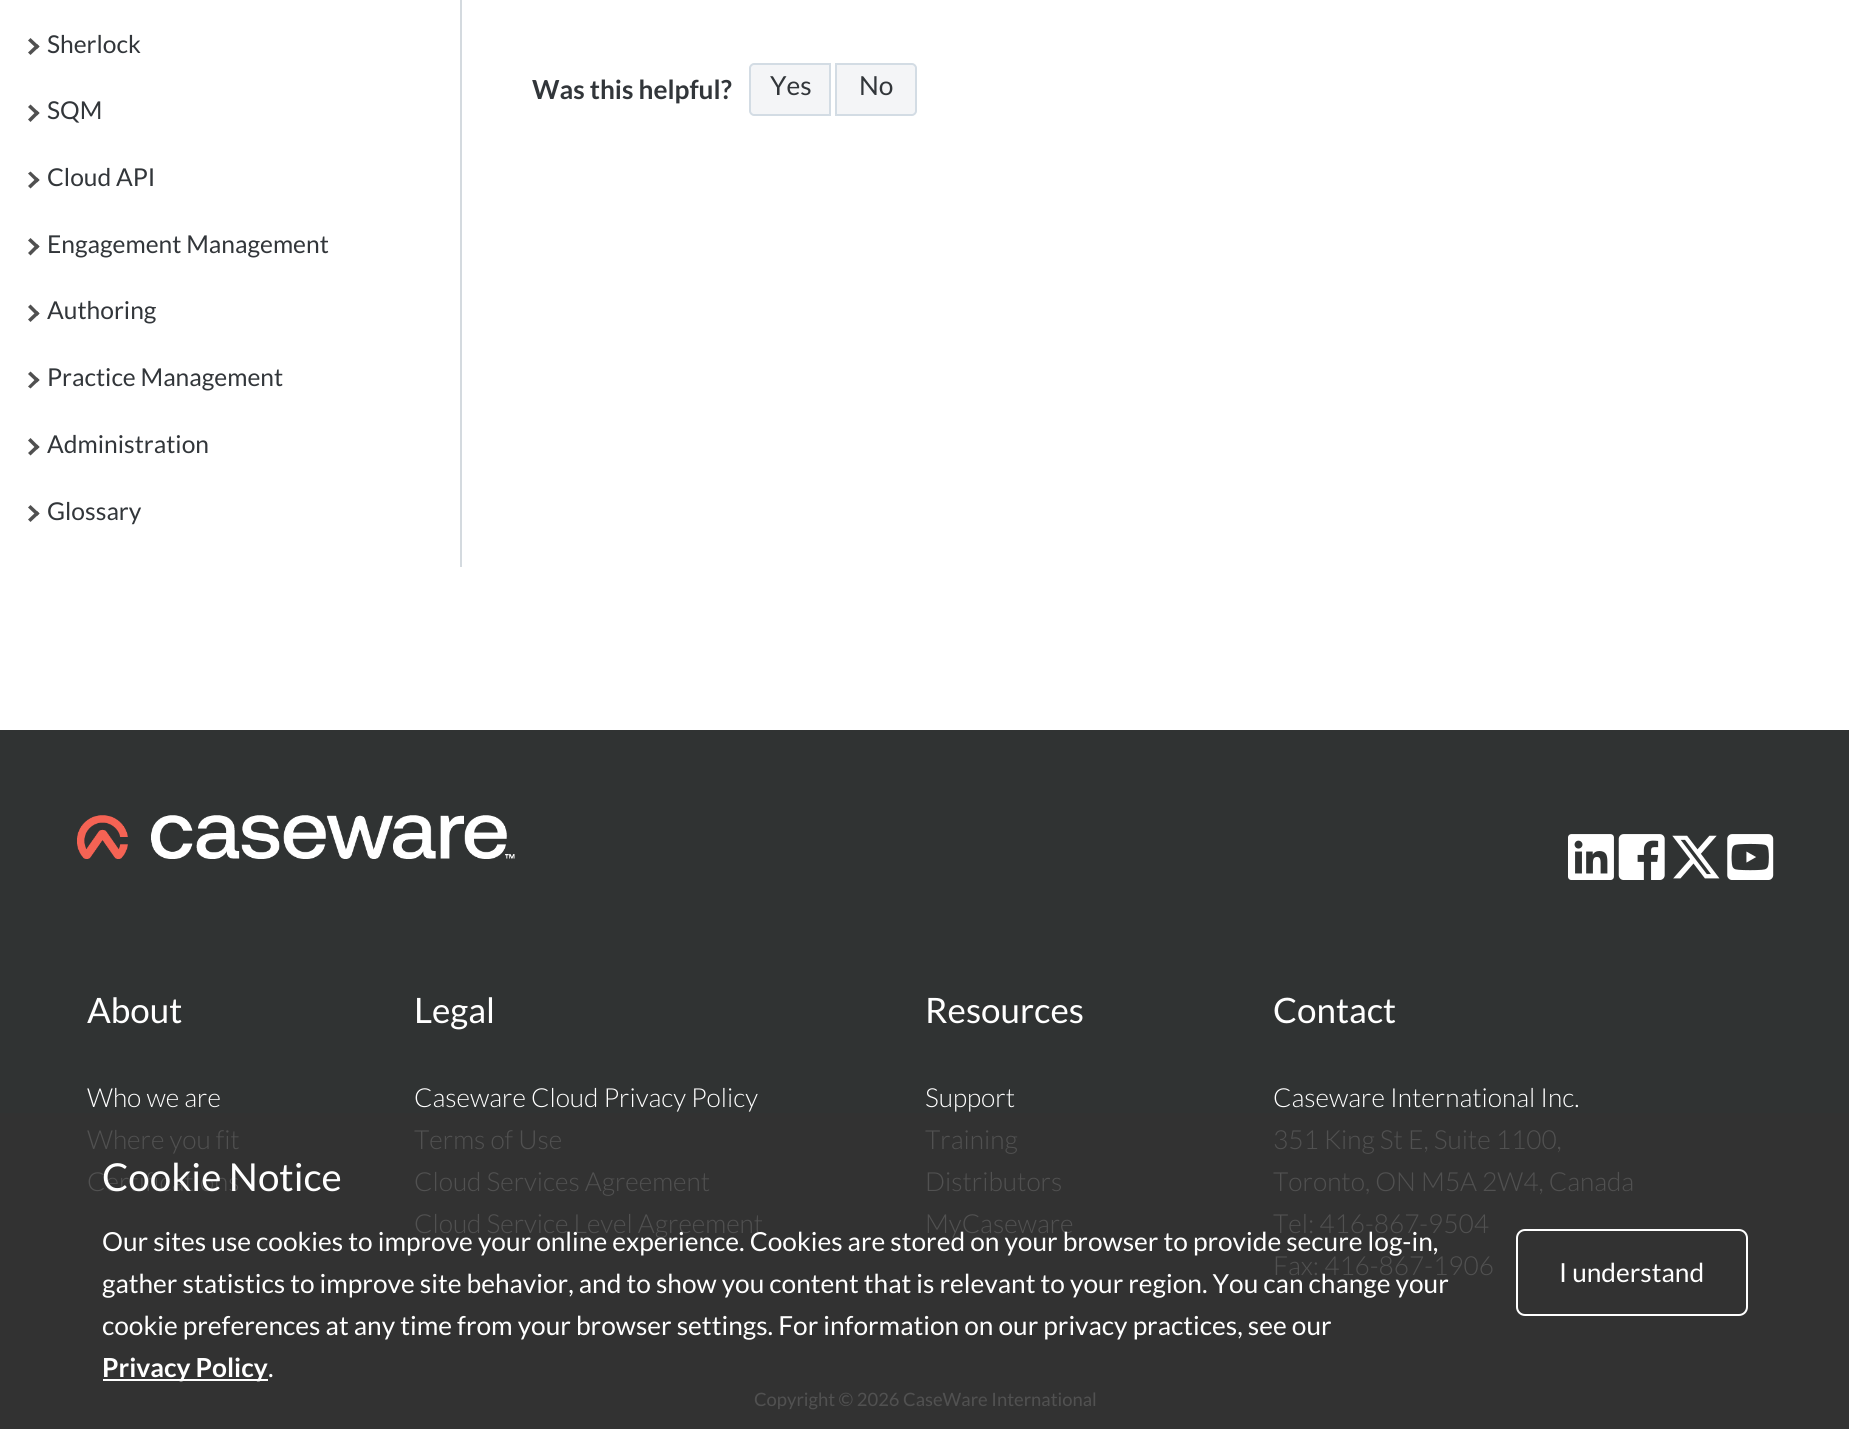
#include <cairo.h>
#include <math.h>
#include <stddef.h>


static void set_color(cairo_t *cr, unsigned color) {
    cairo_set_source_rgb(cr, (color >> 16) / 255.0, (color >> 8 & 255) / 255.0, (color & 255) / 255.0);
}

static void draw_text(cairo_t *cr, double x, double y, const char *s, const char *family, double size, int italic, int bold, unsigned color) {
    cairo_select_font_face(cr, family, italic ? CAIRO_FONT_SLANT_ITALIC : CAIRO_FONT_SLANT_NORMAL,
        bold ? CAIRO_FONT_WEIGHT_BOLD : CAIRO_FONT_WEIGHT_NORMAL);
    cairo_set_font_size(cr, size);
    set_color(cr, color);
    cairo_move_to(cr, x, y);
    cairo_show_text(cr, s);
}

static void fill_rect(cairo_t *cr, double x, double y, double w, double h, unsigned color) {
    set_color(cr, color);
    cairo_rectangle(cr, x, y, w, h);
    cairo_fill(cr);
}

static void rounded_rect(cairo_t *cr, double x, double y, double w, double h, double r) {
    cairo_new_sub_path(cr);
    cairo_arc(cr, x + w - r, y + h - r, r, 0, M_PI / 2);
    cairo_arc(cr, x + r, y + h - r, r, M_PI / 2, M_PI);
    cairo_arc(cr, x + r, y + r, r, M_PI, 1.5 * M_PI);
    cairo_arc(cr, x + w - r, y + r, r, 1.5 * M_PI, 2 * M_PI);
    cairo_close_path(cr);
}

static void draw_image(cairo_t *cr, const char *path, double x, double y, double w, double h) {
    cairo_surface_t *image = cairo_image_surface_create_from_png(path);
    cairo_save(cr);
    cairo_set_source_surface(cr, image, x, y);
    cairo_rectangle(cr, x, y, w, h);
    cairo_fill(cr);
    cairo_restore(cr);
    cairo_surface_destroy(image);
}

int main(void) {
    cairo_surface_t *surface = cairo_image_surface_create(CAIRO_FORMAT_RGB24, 1849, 1429);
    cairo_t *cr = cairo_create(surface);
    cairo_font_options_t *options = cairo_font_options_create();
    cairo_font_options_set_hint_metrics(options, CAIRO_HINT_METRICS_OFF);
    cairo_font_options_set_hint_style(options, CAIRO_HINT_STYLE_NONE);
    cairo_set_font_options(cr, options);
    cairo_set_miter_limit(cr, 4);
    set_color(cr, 0xFFFFFF);
    cairo_paint(cr);
    fill_rect(cr, 460, 0, 2, 567, 0xD4DADF);
    set_color(cr, 0x505050);
    cairo_new_path(cr);
    cairo_move_to(cr, 28, 40.5);
    cairo_line_to(cr, 30.5, 38);
    cairo_line_to(cr, 39.5, 46.5);
    cairo_line_to(cr, 37, 49);
    cairo_close_path(cr);
    cairo_fill(cr);
    cairo_new_path(cr);
    cairo_move_to(cr, 28, 52.5);
    cairo_line_to(cr, 37, 44);
    cairo_line_to(cr, 39.5, 46.5);
    cairo_line_to(cr, 30.5, 55);
    cairo_close_path(cr);
    cairo_fill(cr);
    draw_text(cr, 47, 53, "Sherlock", "Lato", 24.6, 0, 0, 0x32363A);
    set_color(cr, 0x505050);
    cairo_new_path(cr);
    cairo_move_to(cr, 28, 107);
    cairo_line_to(cr, 30.5, 104.5);
    cairo_line_to(cr, 39.5, 113);
    cairo_line_to(cr, 37, 115.5);
    cairo_close_path(cr);
    cairo_fill(cr);
    cairo_new_path(cr);
    cairo_move_to(cr, 28, 119.5);
    cairo_line_to(cr, 37, 110.5);
    cairo_line_to(cr, 39.5, 113);
    cairo_line_to(cr, 30.5, 122);
    cairo_close_path(cr);
    cairo_fill(cr);
    draw_text(cr, 47, 119, "SQM", "Lato", 24.6, 0, 0, 0x32363A);
    set_color(cr, 0x505050);
    cairo_new_path(cr);
    cairo_move_to(cr, 28, 173.5);
    cairo_line_to(cr, 30.5, 171.5);
    cairo_line_to(cr, 39.5, 180);
    cairo_line_to(cr, 37, 182.5);
    cairo_close_path(cr);
    cairo_fill(cr);
    cairo_new_path(cr);
    cairo_move_to(cr, 28, 186);
    cairo_line_to(cr, 37, 177.5);
    cairo_line_to(cr, 39.5, 180);
    cairo_line_to(cr, 30.5, 188.5);
    cairo_close_path(cr);
    cairo_fill(cr);
    draw_text(cr, 47, 186, "Cloud API", "Lato", 24.6, 0, 0, 0x32363A);
    set_color(cr, 0x505050);
    cairo_new_path(cr);
    cairo_move_to(cr, 28, 240.5);
    cairo_line_to(cr, 30.5, 238);
    cairo_line_to(cr, 39.5, 246.5);
    cairo_line_to(cr, 37, 249);
    cairo_close_path(cr);
    cairo_fill(cr);
    cairo_new_path(cr);
    cairo_move_to(cr, 28, 253);
    cairo_line_to(cr, 37, 244);
    cairo_line_to(cr, 39.5, 246.5);
    cairo_line_to(cr, 30.5, 255.5);
    cairo_close_path(cr);
    cairo_fill(cr);
    draw_text(cr, 47, 253, "Engagement Management", "Lato", 24.6, 0, 0, 0x32363A);
    set_color(cr, 0x505050);
    cairo_new_path(cr);
    cairo_move_to(cr, 28, 307);
    cairo_line_to(cr, 30.5, 304.5);
    cairo_line_to(cr, 39.5, 313.5);
    cairo_line_to(cr, 37, 316);
    cairo_close_path(cr);
    cairo_fill(cr);
    cairo_new_path(cr);
    cairo_move_to(cr, 28, 319.5);
    cairo_line_to(cr, 37, 311);
    cairo_line_to(cr, 39.5, 313.5);
    cairo_line_to(cr, 30.5, 322);
    cairo_close_path(cr);
    cairo_fill(cr);
    draw_text(cr, 47, 319, "Authoring", "Lato", 24.6, 0, 0, 0x32363A);
    set_color(cr, 0x505050);
    cairo_new_path(cr);
    cairo_move_to(cr, 28, 374);
    cairo_line_to(cr, 30.5, 371.5);
    cairo_line_to(cr, 39.5, 380);
    cairo_line_to(cr, 37, 382.5);
    cairo_close_path(cr);
    cairo_fill(cr);
    cairo_new_path(cr);
    cairo_move_to(cr, 28, 386.5);
    cairo_line_to(cr, 37, 377.5);
    cairo_line_to(cr, 39.5, 380);
    cairo_line_to(cr, 30.5, 388.5);
    cairo_close_path(cr);
    cairo_fill(cr);
    draw_text(cr, 47, 386, "Practice Management", "Lato", 24.6, 0, 0, 0x32363A);
    set_color(cr, 0x505050);
    cairo_new_path(cr);
    cairo_move_to(cr, 28, 440.5);
    cairo_line_to(cr, 30.5, 438);
    cairo_line_to(cr, 39.5, 447);
    cairo_line_to(cr, 37, 449.5);
    cairo_close_path(cr);
    cairo_fill(cr);
    cairo_new_path(cr);
    cairo_move_to(cr, 28, 453);
    cairo_line_to(cr, 37, 444.5);
    cairo_line_to(cr, 39.5, 447);
    cairo_line_to(cr, 30.5, 455.5);
    cairo_close_path(cr);
    cairo_fill(cr);
    draw_text(cr, 47, 453, "Administration", "Lato", 24.6, 0, 0, 0x32363A);
    set_color(cr, 0x505050);
    cairo_new_path(cr);
    cairo_move_to(cr, 28, 507.5);
    cairo_line_to(cr, 30.5, 505);
    cairo_line_to(cr, 39.5, 513.5);
    cairo_line_to(cr, 37, 516);
    cairo_close_path(cr);
    cairo_fill(cr);
    cairo_new_path(cr);
    cairo_move_to(cr, 28, 519.5);
    cairo_line_to(cr, 37, 511);
    cairo_line_to(cr, 39.5, 513.5);
    cairo_line_to(cr, 30.5, 522);
    cairo_close_path(cr);
    cairo_fill(cr);
    draw_text(cr, 47, 520, "Glossary", "Lato", 24.6, 0, 0, 0x32363A);
    draw_text(cr, 532, 99, "Was this helpful?", "Lato", 26.25, 0, 1, 0x32363A);
    set_color(cr, 0xF4F5F7);
    cairo_new_path(cr);
    cairo_move_to(cr, 754, 64);
    cairo_line_to(cr, 830, 64);
    cairo_line_to(cr, 830, 115);
    cairo_line_to(cr, 754, 115);
    cairo_curve_to(cr, 752, 115, 750, 113, 750, 111);
    cairo_line_to(cr, 750, 68);
    cairo_curve_to(cr, 750, 66, 752, 64, 754, 64);
    cairo_close_path(cr);
    cairo_fill_preserve(cr);
    set_color(cr, 0xD3DCE4);
    cairo_stroke(cr);
    draw_text(cr, 770, 95, "Yes", "Lato", 26.25, 0, 0, 0x32363A);
    set_color(cr, 0xF4F5F7);
    cairo_new_path(cr);
    cairo_move_to(cr, 836, 64);
    cairo_line_to(cr, 912, 64);
    cairo_curve_to(cr, 914, 64, 916, 66, 916, 68);
    cairo_line_to(cr, 916, 111);
    cairo_curve_to(cr, 916, 113, 914, 115, 912, 115);
    cairo_line_to(cr, 836, 115);
    cairo_close_path(cr);
    cairo_fill_preserve(cr);
    set_color(cr, 0xD3DCE4);
    cairo_stroke(cr);
    draw_text(cr, 859, 95, "No", "Lato", 26.25, 0, 0, 0x32363A);
    fill_rect(cr, 0, 730, 1849, 383, 0x303333);
    fill_rect(cr, 0, 1113, 1849, 316, 0x323232);
    draw_image(cr, "assets/img1.png", 77, 815, 438, 44);
    draw_image(cr, "assets/img2.png", 1568, 834, 46, 46);
    draw_image(cr, "assets/img3.png", 1618, 834, 47, 46);
    draw_image(cr, "assets/img4.png", 1672, 835, 48, 44);
    draw_image(cr, "assets/img5.png", 1727, 834, 47, 46);
    draw_text(cr, 87, 1023, "About", "Lato", 35, 0, 0, 0xFFFFFF);
    draw_text(cr, 87, 1107, "Who we are", "Lato Light", 26.25, 0, 0, 0xFFFFFF);
    draw_text(cr, 87, 1149, "Where you fit", "Lato Light", 26.25, 0, 0, 0x515151);
    draw_text(cr, 87, 1191, "Certifications", "Lato Light", 26.25, 0, 0, 0x515151);
    draw_text(cr, 414, 1023, "Legal", "Lato", 35, 0, 0, 0xFFFFFF);
    draw_text(cr, 414, 1107, "Caseware Cloud Privacy Policy", "Lato Light", 26.25, 0, 0, 0xFFFFFF);
    draw_text(cr, 414, 1149, "Terms of Use", "Lato Light", 26.25, 0, 0, 0x515151);
    draw_text(cr, 414, 1191, "Cloud Services Agreement", "Lato Light", 26.25, 0, 0, 0x515151);
    draw_text(cr, 414, 1233, "Cloud Service Level Agreement", "Lato Light", 26.25, 0, 0, 0x515151);
    draw_text(cr, 925, 1023, "Resources", "Lato", 35, 0, 0, 0xFFFFFF);
    draw_text(cr, 925, 1107, "Support", "Lato Light", 26.25, 0, 0, 0xFFFFFF);
    draw_text(cr, 925, 1149, "Training", "Lato Light", 26.25, 0, 0, 0x515151);
    draw_text(cr, 925, 1191, "Distributors", "Lato Light", 26.25, 0, 0, 0x515151);
    draw_text(cr, 925, 1233, "MyCaseware", "Lato Light", 26.25, 0, 0, 0x515151);
    draw_text(cr, 1273, 1023, "Contact", "Lato", 35, 0, 0, 0xFFFFFF);
    draw_text(cr, 1273, 1107, "Caseware International Inc.", "Lato Light", 26.25, 0, 0, 0xFFFFFF);
    draw_text(cr, 1273, 1149, "351 King St E, Suite 1100,", "Lato Light", 26.25, 0, 0, 0x515151);
    draw_text(cr, 1273, 1191, "Toronto, ON M5A 2W4, Canada", "Lato Light", 26.25, 0, 0, 0x515151);
    draw_text(cr, 1273, 1233, "Tel: 416-867-9504", "Lato Light", 26.25, 0, 0, 0x515151);
    draw_text(cr, 1273, 1275, "Fax: 416-867-1906", "Lato Light", 26.25, 0, 0, 0x515151);
    draw_text(cr, 754, 1406, "Copyright © 2026 CaseWare International", "Lato", 18.4, 0, 0, 0x515151);
    draw_text(cr, 102, 1191, "Cookie Notice", "Lato", 38.5, 0, 0, 0xFFFFFF);
    draw_text(cr, 102, 1251, "Our sites use cookies to improve your online experience. Cookies are stored on your browser to provide secure log-in,", "Lato", 26.25, 0, 0, 0xFFFFFF);
    draw_text(cr, 102, 1293, "gather statistics to improve site behavior, and to show you content that is relevant to your region. You can change your", "Lato", 26.25, 0, 0, 0xFFFFFF);
    draw_text(cr, 102, 1335, "cookie preferences at any time from your browser settings. For information on our privacy practices, see our", "Lato", 26.25, 0, 0, 0xFFFFFF);
    fill_rect(cr, 103, 1379, 165, 2, 0xFFFFFF);
    draw_text(cr, 102, 1377, "Privacy Policy", "Lato", 26.25, 0, 1, 0xFFFFFF);
    draw_text(cr, 268, 1377, ".", "Lato", 26.25, 0, 0, 0xFFFFFF);
    rounded_rect(cr, 1517, 1230, 230, 85, 8);
    cairo_stroke(cr);
    draw_text(cr, 1559, 1282, "I understand", "Lato", 26.25, 0, 0, 0xFFFFFF);
    cairo_surface_write_to_png(surface, "output.png");
    cairo_font_options_destroy(options);
    cairo_destroy(cr);
    cairo_surface_destroy(surface);
    return 0;
}
